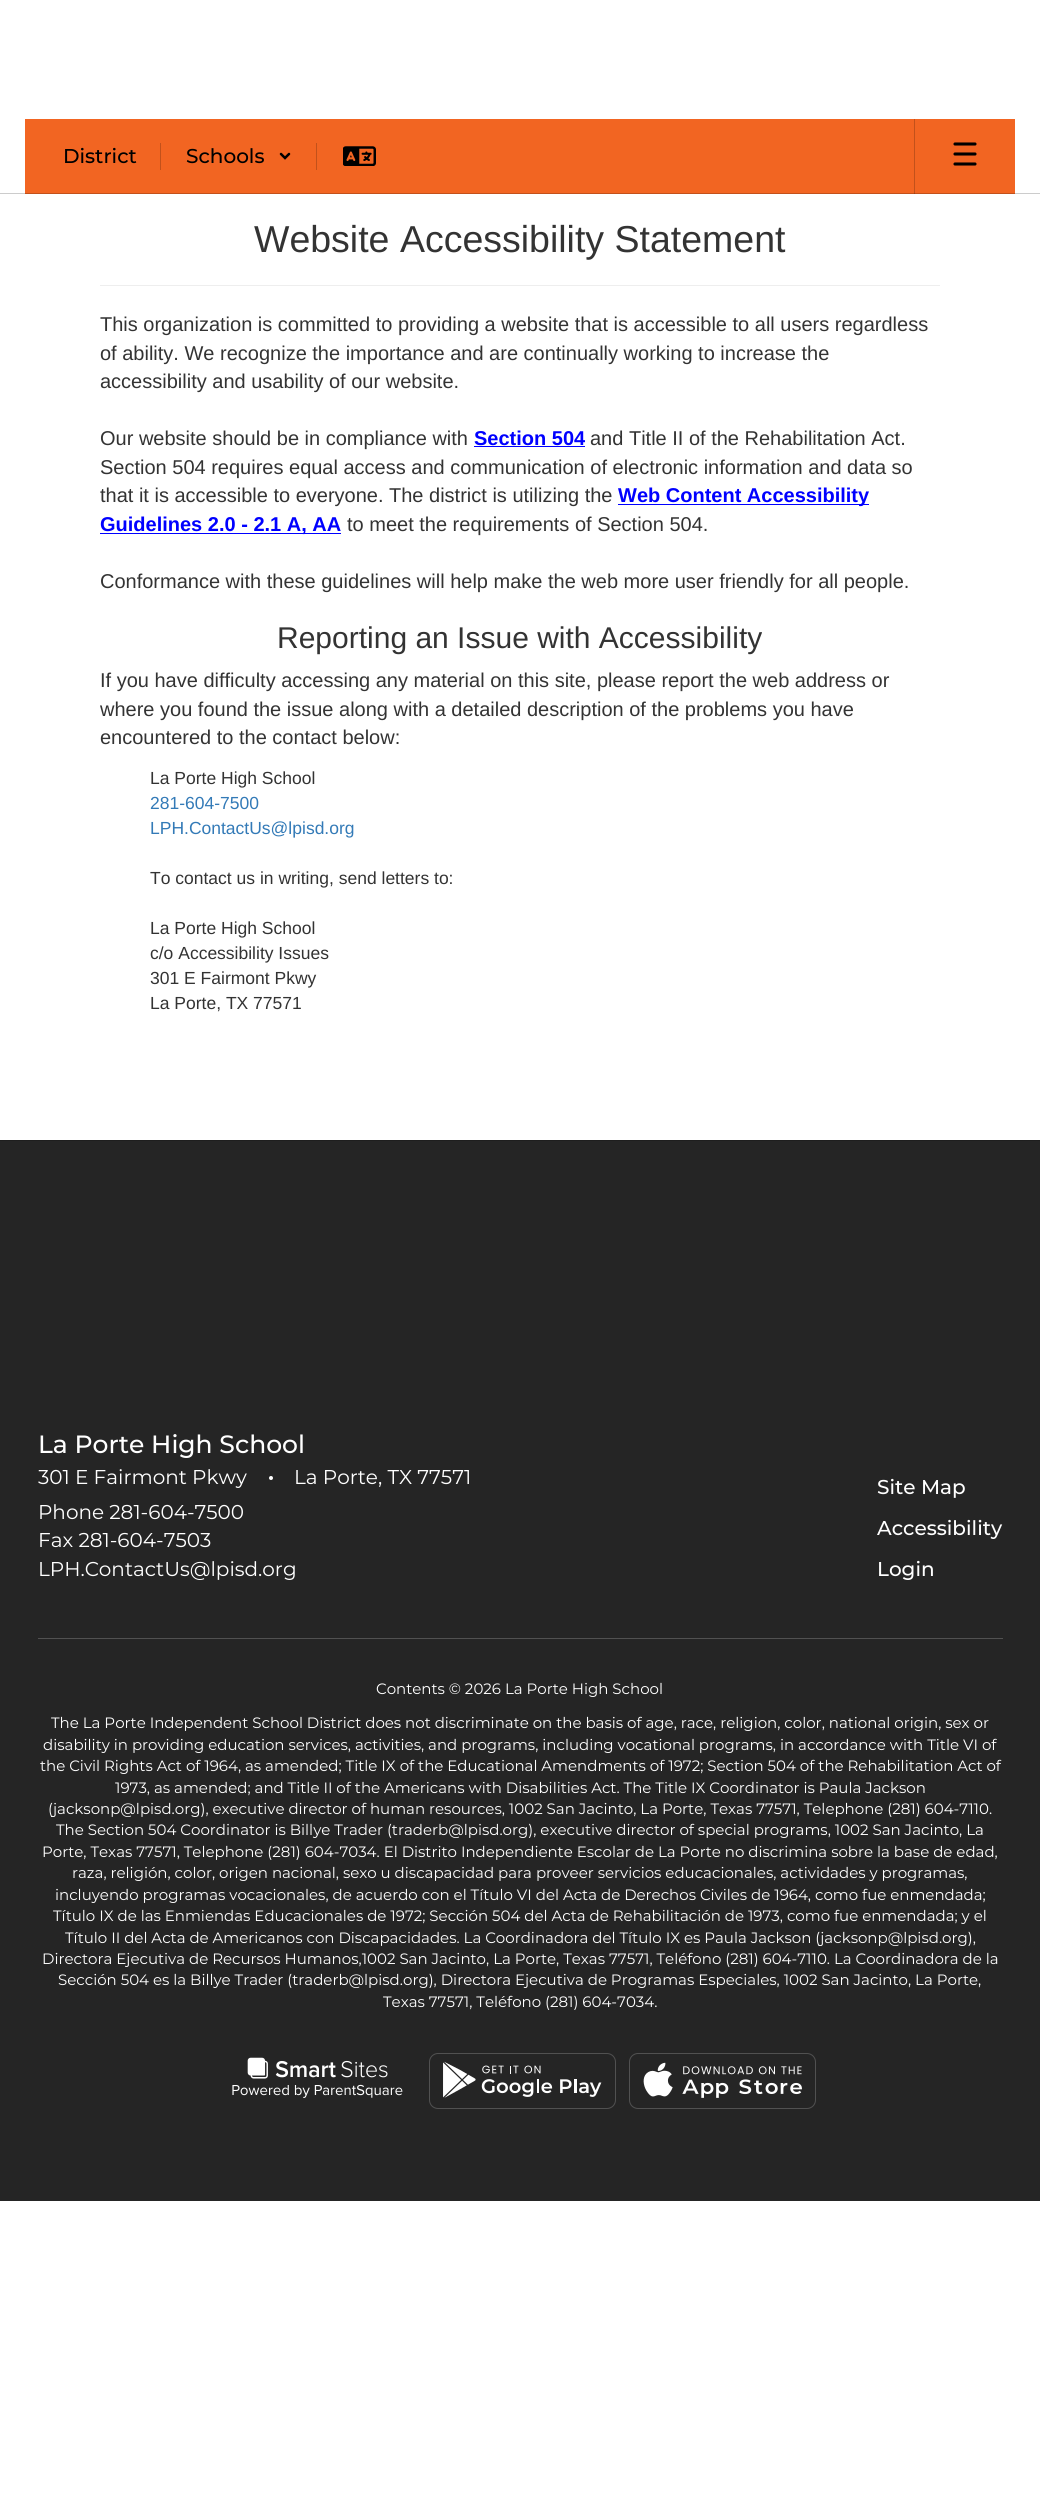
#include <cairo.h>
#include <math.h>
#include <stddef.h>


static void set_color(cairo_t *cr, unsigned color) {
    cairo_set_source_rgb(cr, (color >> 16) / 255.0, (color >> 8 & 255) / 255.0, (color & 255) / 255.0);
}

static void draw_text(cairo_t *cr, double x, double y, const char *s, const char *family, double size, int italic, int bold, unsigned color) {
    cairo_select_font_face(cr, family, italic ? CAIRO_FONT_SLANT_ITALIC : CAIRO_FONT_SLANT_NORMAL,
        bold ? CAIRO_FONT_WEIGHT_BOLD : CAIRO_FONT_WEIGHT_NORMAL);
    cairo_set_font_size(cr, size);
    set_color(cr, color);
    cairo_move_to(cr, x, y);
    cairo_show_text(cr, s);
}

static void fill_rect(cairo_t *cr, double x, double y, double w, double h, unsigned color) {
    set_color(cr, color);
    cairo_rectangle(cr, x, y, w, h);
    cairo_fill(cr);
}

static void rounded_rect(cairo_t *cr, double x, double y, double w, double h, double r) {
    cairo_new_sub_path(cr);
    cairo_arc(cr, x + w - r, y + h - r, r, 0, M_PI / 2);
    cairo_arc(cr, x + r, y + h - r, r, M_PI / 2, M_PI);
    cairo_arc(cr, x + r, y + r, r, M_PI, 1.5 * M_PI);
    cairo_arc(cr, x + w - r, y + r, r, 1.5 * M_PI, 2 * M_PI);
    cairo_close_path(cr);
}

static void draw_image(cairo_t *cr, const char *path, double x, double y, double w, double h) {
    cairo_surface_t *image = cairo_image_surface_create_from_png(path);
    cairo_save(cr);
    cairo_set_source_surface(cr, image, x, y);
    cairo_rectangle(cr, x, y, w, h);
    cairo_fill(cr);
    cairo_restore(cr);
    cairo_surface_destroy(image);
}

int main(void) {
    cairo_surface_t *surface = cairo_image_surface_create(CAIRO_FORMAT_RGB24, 1040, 2513);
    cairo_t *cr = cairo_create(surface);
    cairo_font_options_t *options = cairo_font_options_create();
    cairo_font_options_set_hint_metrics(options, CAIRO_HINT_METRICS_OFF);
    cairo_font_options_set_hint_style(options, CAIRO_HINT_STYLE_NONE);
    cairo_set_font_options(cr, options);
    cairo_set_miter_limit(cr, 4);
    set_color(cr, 0xFFFFFF);
    cairo_paint(cr);
    fill_rect(cr, 0, 193, 1040, 1, 0xCCCCCC);
    fill_rect(cr, 25, 119, 990, 74, 0xF26522);
    fill_rect(cr, 914, 119, 1, 75, 0xC2511B);
    fill_rect(cr, 25, 193, 990, 1, 0xC2511B);
    fill_rect(cr, 914, 193, 1, 1, 0x9B4116);
    draw_text(cr, 63, 163, "District", "Montserrat Medium", 20, 0, 0, 0x000000);
    fill_rect(cr, 160, 143, 1, 27, 0xC2511B);
    draw_text(cr, 186, 163, "Schools", "Montserrat Medium", 20, 0, 0, 0x000000);
    cairo_new_path(cr);
    cairo_move_to(cr, 281, 154);
    cairo_line_to(cr, 285, 158);
    cairo_line_to(cr, 289, 154);
    cairo_set_line_width(cr, 2.5);
    cairo_set_line_cap(cr, CAIRO_LINE_CAP_ROUND);
    cairo_stroke(cr);
    fill_rect(cr, 316, 143, 1, 27, 0xC2511B);
    draw_image(cr, "assets/img1.png", 343, 146, 33, 20);
    cairo_new_path(cr);
    cairo_move_to(cr, 955, 144);
    cairo_line_to(cr, 975, 144);
    cairo_move_to(cr, 955, 154);
    cairo_line_to(cr, 975, 154);
    cairo_move_to(cr, 955, 164);
    cairo_line_to(cr, 975, 164);
    set_color(cr, 0x000000);
    cairo_set_line_width(cr, 3.1);
    cairo_stroke(cr);
    draw_text(cr, 254, 252, "Website Accessibility Statement", "Liberation Sans", 37.5, 0, 0, 0x333333);
    fill_rect(cr, 100, 285, 840, 1, 0xEEEEEE);
    draw_text(cr, 100, 331, "This organization is committed to providing a website that is accessible to all users regardless", "Liberation Sans", 20, 0, 0, 0x333333);
    draw_text(cr, 100, 360, "of ability. We recognize the importance and are continually working to increase the", "Liberation Sans", 20, 0, 0, 0x333333);
    draw_text(cr, 100, 388, "accessibility and usability of our website.", "Liberation Sans", 20, 0, 0, 0x333333);
    draw_text(cr, 100, 445, "Our website should be in compliance with", "Liberation Sans", 20, 0, 0, 0x333333);
    draw_text(cr, 474, 445, "Section 504", "Liberation Sans", 20, 0, 1, 0x0000FF);
    fill_rect(cr, 474, 446, 111, 1, 0x0000FF);
    draw_text(cr, 590, 445, "and Title II of the Rehabilitation Act.", "Liberation Sans", 20, 0, 0, 0x333333);
    draw_text(cr, 100, 474, "Section 504 requires equal access and communication of electronic information and data so", "Liberation Sans", 20, 0, 0, 0x333333);
    draw_text(cr, 100, 502, "that it is accessible to everyone. The district is utilizing the", "Liberation Sans", 20, 0, 0, 0x333333);
    fill_rect(cr, 618, 504, 251, 1, 0x0000FF);
    draw_text(cr, 618, 502, "Web Content Accessibility", "Liberation Sans", 20, 0, 1, 0x0000FF);
    fill_rect(cr, 100, 533, 241, 1, 0x0000FF);
    draw_text(cr, 100, 531, "Guidelines 2.0 - 2.1 A, AA", "Liberation Sans", 20, 0, 1, 0x0000FF);
    draw_text(cr, 347, 531, "to meet the requirements of Section 504.", "Liberation Sans", 20, 0, 0, 0x333333);
    draw_text(cr, 100, 588, "Conformance with these guidelines will help make the web more user friendly for all people.", "Liberation Sans", 20, 0, 0, 0x333333);
    draw_text(cr, 277, 648, "Reporting an Issue with Accessibility", "Liberation Sans", 30, 0, 0, 0x333333);
    draw_text(cr, 100, 687, "If you have difficulty accessing any material on this site, please report the web address or", "Liberation Sans", 20, 0, 0, 0x333333);
    draw_text(cr, 100, 716, "where you found the issue along with a detailed description of the problems you have", "Liberation Sans", 20, 0, 0, 0x333333);
    draw_text(cr, 100, 744, "encountered to the contact below:", "Liberation Sans", 20, 0, 0, 0x333333);
    draw_text(cr, 150, 784, "La Porte High School", "Liberation Sans", 17.5, 0, 0, 0x333333);
    draw_text(cr, 150, 809, "281-604-7500", "Liberation Sans", 17.5, 0, 0, 0x337AB7);
    draw_text(cr, 150, 834, "LPH.ContactUs@lpisd.org", "Liberation Sans", 17.5, 0, 0, 0x337AB7);
    draw_text(cr, 150, 884, "To contact us in writing, send letters to:", "Liberation Sans", 17.5, 0, 0, 0x333333);
    draw_text(cr, 150, 934, "La Porte High School", "Liberation Sans", 17.5, 0, 0, 0x333333);
    draw_text(cr, 150, 959, "c/o Accessibility Issues", "Liberation Sans", 17.5, 0, 0, 0x333333);
    draw_text(cr, 150, 984, "301 E Fairmont Pkwy", "Liberation Sans", 17.5, 0, 0, 0x333333);
    draw_text(cr, 150, 1009, "La Porte, TX 77571", "Liberation Sans", 17.5, 0, 0, 0x333333);
    fill_rect(cr, 0, 1140, 1040, 1, 0x1E1E1E);
    fill_rect(cr, 0, 1141, 1040, 1060, 0x252525);
    draw_text(cr, 38, 1453, "La Porte High School", "Montserrat Medium", 25, 0, 0, 0xFFFFFF);
    draw_text(cr, 38, 1484, "301 E Fairmont Pkwy", "Montserrat", 20, 0, 0, 0xFFFFFF);
    cairo_new_path(cr);
    cairo_arc(cr, 271, 1478, 2, 0, 2 * M_PI);
    cairo_fill(cr);
    draw_text(cr, 294, 1484, "La Porte, TX 77571", "Montserrat", 20, 0, 0, 0xFFFFFF);
    draw_text(cr, 38, 1519, "Phone 281-604-7500", "Montserrat", 20, 0, 0, 0xFFFFFF);
    draw_text(cr, 38, 1547, "Fax 281-604-7503", "Montserrat", 20, 0, 0, 0xFFFFFF);
    draw_text(cr, 38, 1576, "LPH.ContactUs@lpisd.org", "Montserrat", 20, 0, 0, 0xFFFFFF);
    draw_text(cr, 877, 1494, "Site Map", "Montserrat Medium", 20, 0, 0, 0xFFFFFF);
    draw_text(cr, 877, 1535, "Accessibility", "Montserrat Medium", 20, 0, 0, 0xFFFFFF);
    draw_text(cr, 877, 1576, "Login", "Montserrat Medium", 20, 0, 0, 0xFFFFFF);
    fill_rect(cr, 38, 1638, 965, 1, 0x515151);
    draw_text(cr, 376, 1694, "Contents © 2026 La Porte High School", "Montserrat", 15, 0, 0, 0xFFFFFF);
    draw_text(cr, 51, 1728, "The La Porte Independent School District does not discriminate on the basis of age, race, religion, color, national origin, sex or", "Montserrat", 15, 0, 0, 0xFFFFFF);
    draw_text(cr, 43, 1750, "disability in providing education services, activities, and programs, including vocational programs, in accordance with Title VI of", "Montserrat", 15, 0, 0, 0xFFFFFF);
    draw_text(cr, 40, 1771, "the Civil Rights Act of 1964, as amended; Title IX of the Educational Amendments of 1972; Section 504 of the Rehabilitation Act of", "Montserrat", 15, 0, 0, 0xFFFFFF);
    draw_text(cr, 115, 1793, "1973, as amended; and Title II of the Americans with Disabilities Act. The Title IX Coordinator is Paula Jackson", "Montserrat", 15, 0, 0, 0xFFFFFF);
    draw_text(cr, 48, 1814, "(jacksonp@lpisd.org), executive director of human resources, 1002 San Jacinto, La Porte, Texas 77571, Telephone (281) 604-7110.", "Montserrat", 15, 0, 0, 0xFFFFFF);
    draw_text(cr, 56, 1835, "The Section 504 Coordinator is Billye Trader (traderb@lpisd.org), executive director of special programs, 1002 San Jacinto, La", "Montserrat", 15, 0, 0, 0xFFFFFF);
    draw_text(cr, 42, 1857, "Porte, Texas 77571, Telephone (281) 604-7034. El Distrito Independiente Escolar de La Porte no discrimina sobre la base de edad,", "Montserrat", 15, 0, 0, 0xFFFFFF);
    draw_text(cr, 72, 1878, "raza, religión, color, origen nacional, sexo u discapacidad para proveer servicios educacionales, actividades y programas,", "Montserrat", 15, 0, 0, 0xFFFFFF);
    draw_text(cr, 55, 1900, "incluyendo programas vocacionales, de acuerdo con el Título VI del Acta de Derechos Civiles de 1964, como fue enmendada;", "Montserrat", 15, 0, 0, 0xFFFFFF);
    draw_text(cr, 53, 1921, "Título IX de las Enmiendas Educacionales de 1972; Sección 504 del Acta de Rehabilitación de 1973, como fue enmendada; y el", "Montserrat", 15, 0, 0, 0xFFFFFF);
    draw_text(cr, 65, 1943, "Título II del Acta de Americanos con Discapacidades. La Coordinadora del Título IX es Paula Jackson (jacksonp@lpisd.org),", "Montserrat", 15, 0, 0, 0xFFFFFF);
    draw_text(cr, 42, 1964, "Directora Ejecutiva de Recursos Humanos,1002 San Jacinto, La Porte, Texas 77571, Teléfono (281) 604-7110. La Coordinadora de la", "Montserrat", 15, 0, 0, 0xFFFFFF);
    draw_text(cr, 58, 1985, "Sección 504 es la Billye Trader (traderb@lpisd.org), Directora Ejecutiva de Programas Especiales, 1002 San Jacinto, La Porte,", "Montserrat", 15, 0, 0, 0xFFFFFF);
    draw_text(cr, 383, 2007, "Texas 77571, Teléfono (281) 604-7034.", "Montserrat", 15, 0, 0, 0xFFFFFF);
    draw_image(cr, "assets/img2.png", 232, 2057, 171, 41);
    rounded_rect(cr, 429.5, 2053.5, 186, 55, 8.5);
    set_color(cr, 0x515151);
    cairo_set_line_width(cr, 1);
    cairo_set_line_cap(cr, CAIRO_LINE_CAP_BUTT);
    cairo_stroke(cr);
    draw_image(cr, "assets/img3.png", 443, 2061, 159, 37);
    rounded_rect(cr, 629.5, 2053.5, 186, 55, 8.5);
    cairo_stroke(cr);
    draw_image(cr, "assets/img4.png", 643, 2062, 159, 36);
    cairo_surface_write_to_png(surface, "output.png");
    cairo_font_options_destroy(options);
    cairo_destroy(cr);
    cairo_surface_destroy(surface);
    return 0;
}
